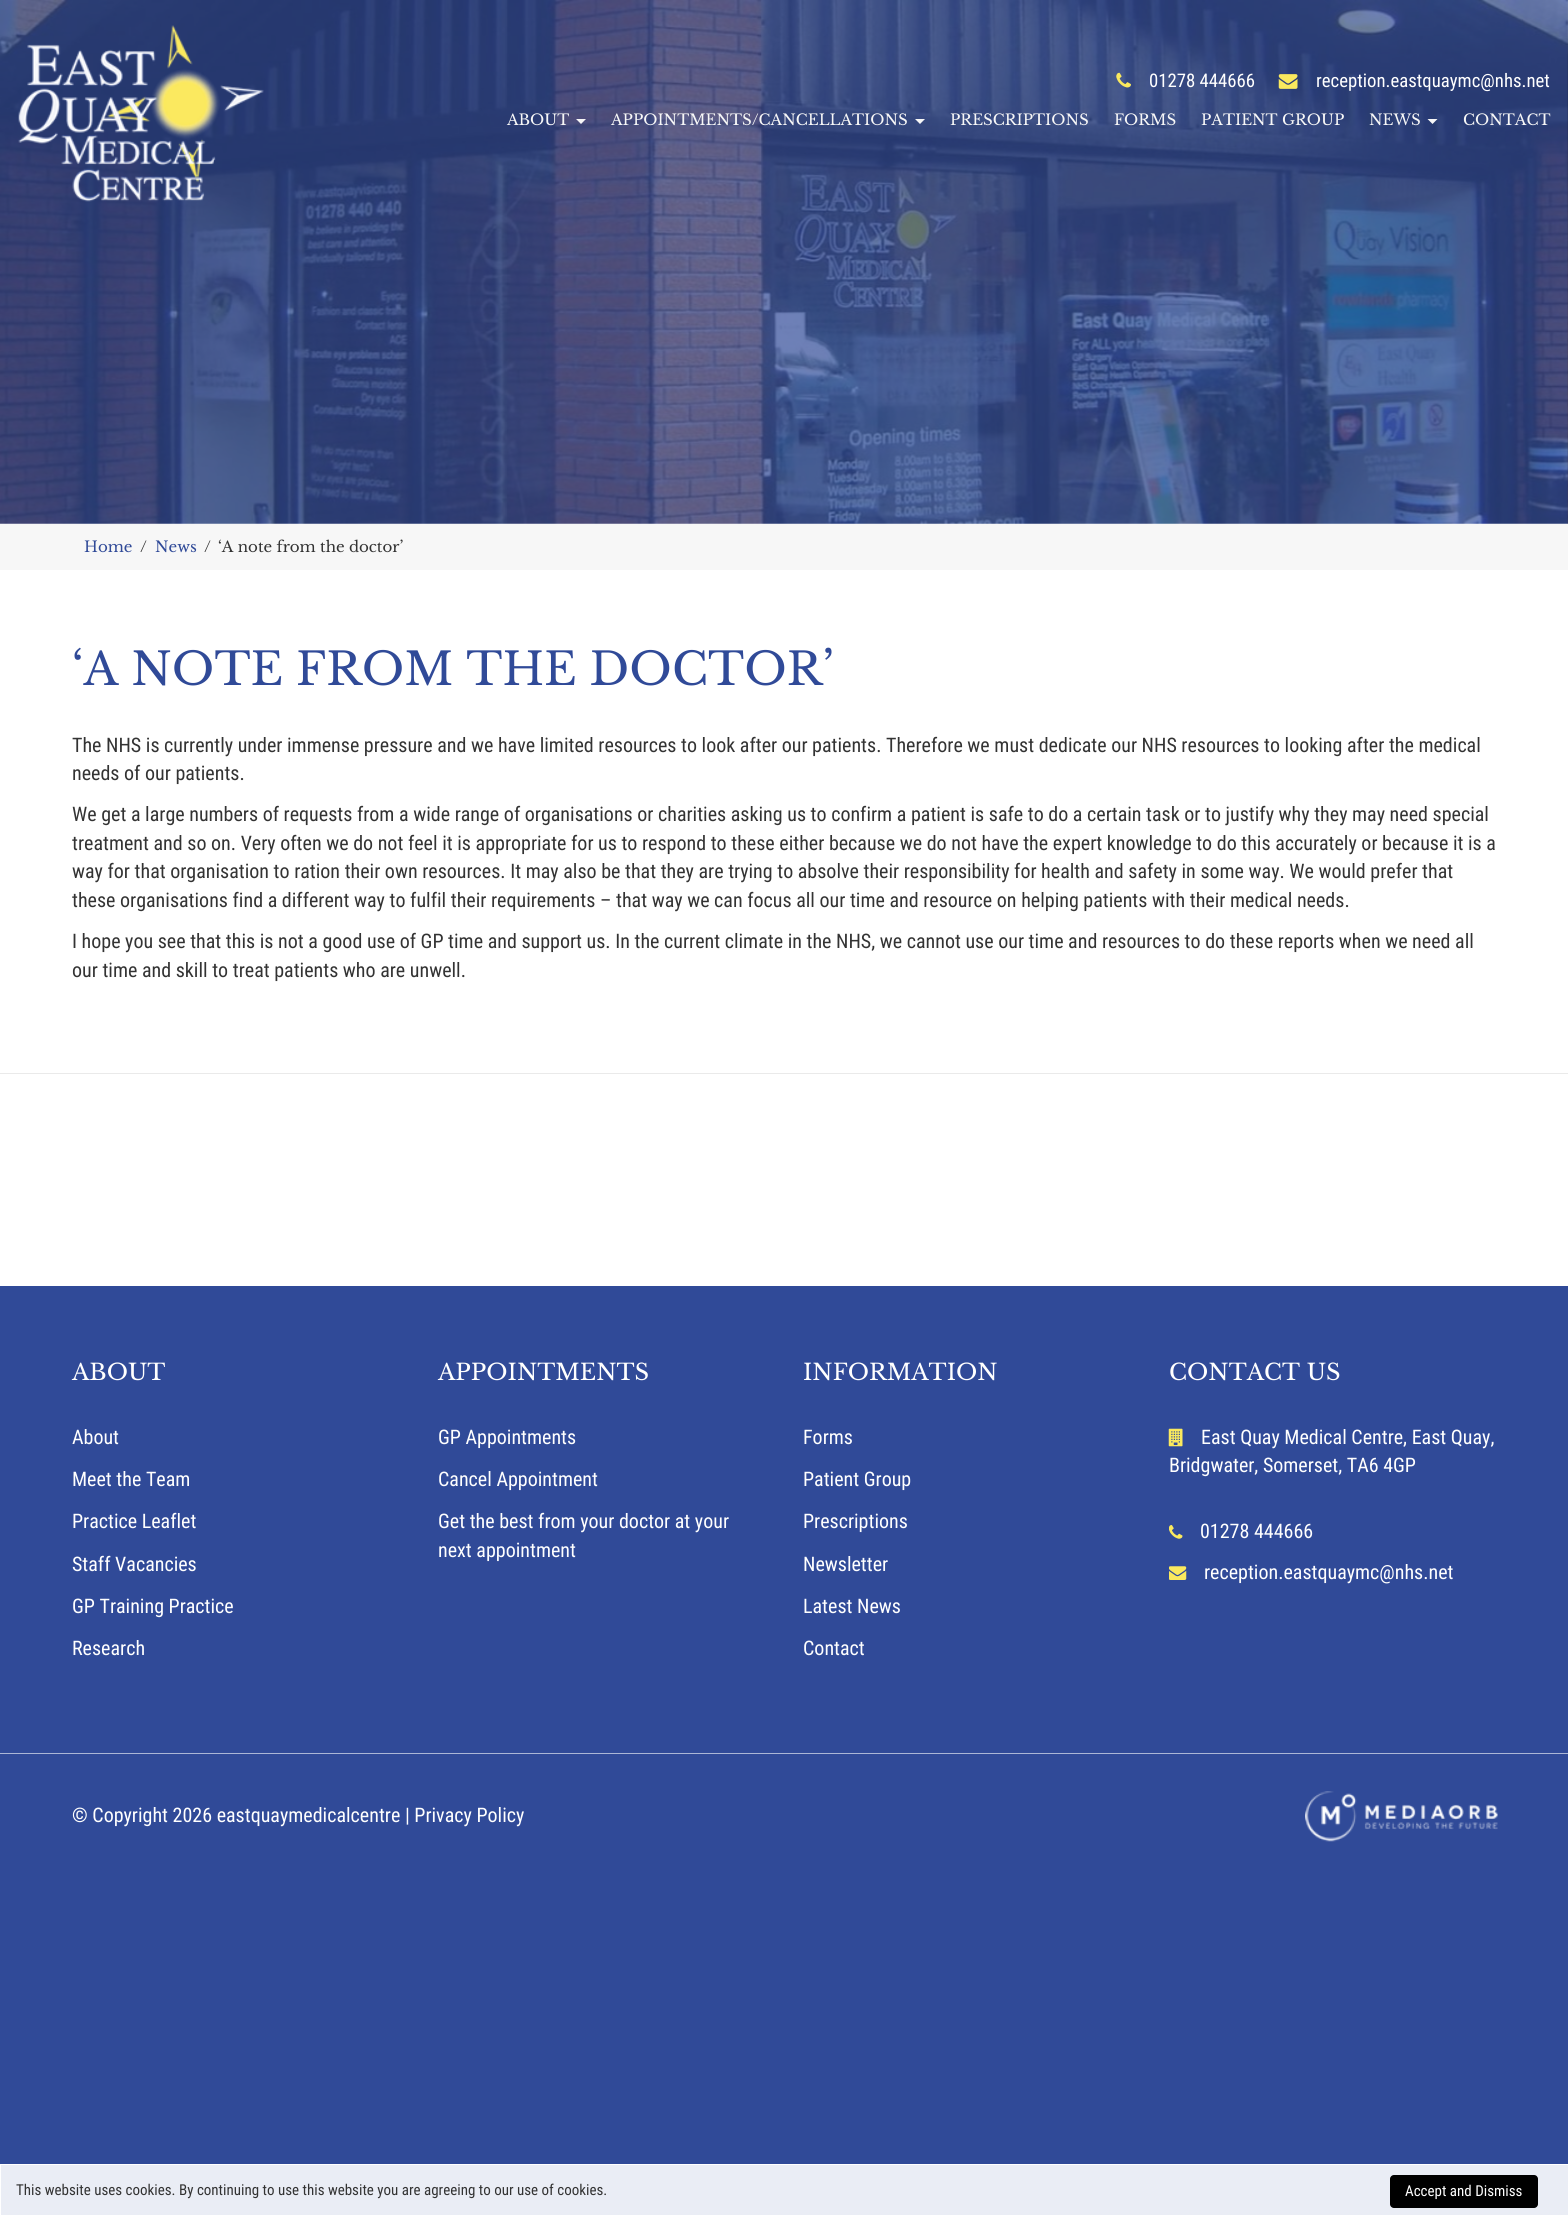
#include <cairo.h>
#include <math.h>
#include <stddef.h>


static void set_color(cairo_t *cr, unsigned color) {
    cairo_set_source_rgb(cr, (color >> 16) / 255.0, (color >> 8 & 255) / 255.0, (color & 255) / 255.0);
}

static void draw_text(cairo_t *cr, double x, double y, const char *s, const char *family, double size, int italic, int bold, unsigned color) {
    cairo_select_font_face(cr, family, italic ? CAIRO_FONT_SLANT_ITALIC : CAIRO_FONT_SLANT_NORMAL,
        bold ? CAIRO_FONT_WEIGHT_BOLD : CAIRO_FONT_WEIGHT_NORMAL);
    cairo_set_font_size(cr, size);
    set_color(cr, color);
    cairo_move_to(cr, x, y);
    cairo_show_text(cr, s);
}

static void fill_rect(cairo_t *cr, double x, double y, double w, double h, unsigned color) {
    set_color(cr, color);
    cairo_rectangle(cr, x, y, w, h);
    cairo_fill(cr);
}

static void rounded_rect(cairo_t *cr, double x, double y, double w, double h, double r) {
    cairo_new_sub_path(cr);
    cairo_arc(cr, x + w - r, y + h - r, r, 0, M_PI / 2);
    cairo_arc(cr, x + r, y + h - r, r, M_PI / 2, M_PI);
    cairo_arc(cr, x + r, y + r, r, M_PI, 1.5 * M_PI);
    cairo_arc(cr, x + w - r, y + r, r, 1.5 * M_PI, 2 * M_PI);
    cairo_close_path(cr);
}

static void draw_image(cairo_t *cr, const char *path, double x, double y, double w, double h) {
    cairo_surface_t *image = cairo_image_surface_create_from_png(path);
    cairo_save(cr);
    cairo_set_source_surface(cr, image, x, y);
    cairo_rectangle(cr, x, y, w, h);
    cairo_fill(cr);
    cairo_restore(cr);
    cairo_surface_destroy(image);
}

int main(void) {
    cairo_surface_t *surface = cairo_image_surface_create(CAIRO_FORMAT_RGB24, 1568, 2216);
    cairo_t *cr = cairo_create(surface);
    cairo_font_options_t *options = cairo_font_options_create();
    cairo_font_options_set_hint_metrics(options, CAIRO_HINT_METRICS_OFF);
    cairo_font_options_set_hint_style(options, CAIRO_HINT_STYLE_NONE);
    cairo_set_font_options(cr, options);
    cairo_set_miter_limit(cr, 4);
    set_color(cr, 0x304A98);
    cairo_paint(cr);
    fill_rect(cr, 0, 523, 1568, 763, 0xFFFFFF);
    draw_image(cr, "assets/img4.png", 0, 0, 1568, 524);
    draw_image(cr, "assets/img1.png", 18, 25, 246, 177);
    draw_image(cr, "assets/img2.png", 1116, 72, 15, 16);
    draw_text(cr, 1149, 87, "01278 444666", "Roboto Condensed", 18.75, 0, 0, 0xFFFFFF);
    draw_image(cr, "assets/img3.png", 1278, 74, 20, 15);
    draw_text(cr, 1316, 87, "reception.eastquaymc@nhs.net", "Roboto Condensed", 18.75, 0, 0, 0xFFFFFF);
    draw_text(cr, 507, 125, "ABOUT", "Libre Baskerville", 15, 0, 0, 0xF7F7F7);
    cairo_new_path(cr);
    cairo_move_to(cr, 576, 119);
    cairo_line_to(cr, 586, 119);
    cairo_line_to(cr, 581, 124);
    cairo_close_path(cr);
    cairo_fill(cr);
    draw_text(cr, 611, 125, "APPOINTMENTS/CANCELLATIONS", "Libre Baskerville", 15, 0, 0, 0xF7F7F7);
    cairo_new_path(cr);
    cairo_move_to(cr, 915, 119);
    cairo_line_to(cr, 925, 119);
    cairo_line_to(cr, 920, 124);
    cairo_close_path(cr);
    cairo_fill(cr);
    draw_text(cr, 950, 125, "PRESCRIPTIONS", "Libre Baskerville", 15, 0, 0, 0xF7F7F7);
    draw_text(cr, 1114, 125, "FORMS", "Libre Baskerville", 15, 0, 0, 0xF7F7F7);
    draw_text(cr, 1201, 125, "PATIENT GROUP", "Libre Baskerville", 15, 0, 0, 0xF7F7F7);
    draw_text(cr, 1369, 125, "NEWS", "Libre Baskerville", 15, 0, 0, 0xF7F7F7);
    cairo_new_path(cr);
    cairo_move_to(cr, 1427.5, 119);
    cairo_line_to(cr, 1437.5, 119);
    cairo_line_to(cr, 1432.5, 124);
    cairo_close_path(cr);
    cairo_fill(cr);
    draw_text(cr, 1463, 125, "CONTACT", "Libre Baskerville", 15, 0, 0, 0xF7F7F7);
    draw_image(cr, "assets/img5.png", 1567, 0, 1, 524);
    fill_rect(cr, 0, 524, 1568, 46, 0xF7F7F7);
    draw_text(cr, 84, 552, "Home", "Libre Baskerville", 15, 0, 0, 0x304A98);
    draw_text(cr, 140, 552, "/", "Libre Baskerville", 15, 0, 0, 0x333333);
    draw_text(cr, 155, 552, "News", "Libre Baskerville", 15, 0, 0, 0x304A98);
    draw_text(cr, 204, 552, "/", "Libre Baskerville", 15, 0, 0, 0x333333);
    draw_text(cr, 218, 552, "‘A note from the doctor’", "Libre Baskerville", 15, 0, 0, 0x333333);
    draw_text(cr, 72, 685, "‘A NOTE FROM THE DOCTOR’", "Libre Baskerville", 45, 0, 0, 0x304A98);
    draw_text(cr, 72, 752, "The NHS is currently under immense pressure and we have limited resources to look after our patients. Therefore we must dedicate our NHS resources to looking after the medical", "Roboto Condensed", 20, 0, 0, 0x333333);
    draw_text(cr, 72, 780, "needs of our patients.", "Roboto Condensed", 20, 0, 0, 0x333333);
    draw_text(cr, 72, 821, "We get a large numbers of requests from a wide range of organisations or charities asking us to confirm a patient is safe to do a certain task or to justify why they may need special", "Roboto Condensed", 20, 0, 0, 0x333333);
    draw_text(cr, 72, 850, "treatment and so on. Very often we do not feel it is appropriate for us to respond to these either because we do not have the expert knowledge to do this accurately or because it is a", "Roboto Condensed", 20, 0, 0, 0x333333);
    draw_text(cr, 72, 878, "way for that organisation to ration their own resources. It may also be that they are trying to absolve their responsibility for health and safety in some way. We would prefer that", "Roboto Condensed", 20, 0, 0, 0x333333);
    draw_text(cr, 72, 907, "these organisations find a different way to fulfil their requirements – that way we can focus all our time and resource on helping patients with their medical needs.", "Roboto Condensed", 20, 0, 0, 0x333333);
    draw_text(cr, 72, 948, "I hope you see that this is not a good use of GP time and support us. In the current climate in the NHS, we cannot use our time and resources to do these reports when we need all", "Roboto Condensed", 20, 0, 0, 0x333333);
    draw_text(cr, 72, 977, "our time and skill to treat patients who are unwell.", "Roboto Condensed", 20, 0, 0, 0x333333);
    fill_rect(cr, 0, 1073, 1568, 1, 0xEAEAEA);
    draw_text(cr, 72, 1380, "ABOUT", "Libre Baskerville", 22.5, 0, 0, 0xFFFFFF);
    draw_text(cr, 72, 1444, "About", "Roboto Condensed", 20, 0, 0, 0xFFFFFF);
    draw_text(cr, 72, 1486, "Meet the Team", "Roboto Condensed", 20, 0, 0, 0xFFFFFF);
    draw_text(cr, 72, 1528, "Practice Leaflet", "Roboto Condensed", 20, 0, 0, 0xFFFFFF);
    draw_text(cr, 72, 1571, "Staff Vacancies", "Roboto Condensed", 20, 0, 0, 0xFFFFFF);
    draw_text(cr, 72, 1613, "GP Training Practice", "Roboto Condensed", 20, 0, 0, 0xFFFFFF);
    draw_text(cr, 72, 1655, "Research", "Roboto Condensed", 20, 0, 0, 0xFFFFFF);
    draw_text(cr, 438, 1380, "APPOINTMENTS", "Libre Baskerville", 22.5, 0, 0, 0xFFFFFF);
    draw_text(cr, 438, 1444, "GP Appointments", "Roboto Condensed", 20, 0, 0, 0xFFFFFF);
    draw_text(cr, 438, 1486, "Cancel Appointment", "Roboto Condensed", 20, 0, 0, 0xFFFFFF);
    draw_text(cr, 438, 1528, "Get the best from your doctor at your", "Roboto Condensed", 20, 0, 0, 0xFFFFFF);
    draw_text(cr, 438, 1557, "next appointment", "Roboto Condensed", 20, 0, 0, 0xFFFFFF);
    draw_text(cr, 803, 1380, "INFORMATION", "Libre Baskerville", 22.5, 0, 0, 0xFFFFFF);
    draw_text(cr, 803, 1444, "Forms", "Roboto Condensed", 20, 0, 0, 0xFFFFFF);
    draw_text(cr, 803, 1486, "Patient Group", "Roboto Condensed", 20, 0, 0, 0xFFFFFF);
    draw_text(cr, 803, 1528, "Prescriptions", "Roboto Condensed", 20, 0, 0, 0xFFFFFF);
    draw_text(cr, 803, 1571, "Newsletter", "Roboto Condensed", 20, 0, 0, 0xFFFFFF);
    draw_text(cr, 803, 1613, "Latest News", "Roboto Condensed", 20, 0, 0, 0xFFFFFF);
    draw_text(cr, 803, 1655, "Contact", "Roboto Condensed", 20, 0, 0, 0xFFFFFF);
    draw_text(cr, 1169, 1380, "CONTACT US", "Libre Baskerville", 22.5, 0, 0, 0xFFFFFF);
    draw_image(cr, "assets/img6.png", 1168, 1428, 15, 19);
    draw_text(cr, 1201, 1444, "East Quay Medical Centre, East Quay,", "Roboto Condensed", 20, 0, 0, 0xFFFFFF);
    draw_text(cr, 1169, 1472, "Bridgwater, Somerset, TA6 4GP", "Roboto Condensed", 20, 0, 0, 0xFFFFFF);
    draw_image(cr, "assets/img7.png", 1169, 1525, 14, 14);
    draw_text(cr, 1200, 1538, "01278 444666", "Roboto Condensed", 20, 0, 0, 0xFFFFFF);
    draw_image(cr, "assets/img8.png", 1169, 1566, 18, 14);
    draw_text(cr, 1204, 1579, "reception.eastquaymc@nhs.net", "Roboto Condensed", 20, 0, 0, 0xFFFFFF);
    fill_rect(cr, 0, 1753, 1568, 1, 0xACB7D6);
    draw_text(cr, 72, 1822, "© Copyright 2026 eastquaymedicalcentre | Privacy Policy", "Roboto Condensed", 20, 0, 0, 0xFFFFFF);
    draw_image(cr, "assets/img9.png", 1305, 1791, 193, 51);
    set_color(cr, 0xEAEDF5);
    cairo_rectangle(cr, 0.5, 2164.5, 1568, 51);
    cairo_fill_preserve(cr);
    set_color(cr, 0xFFFFFF);
    cairo_set_line_width(cr, 1);
    cairo_stroke(cr);
    draw_text(cr, 16, 2195, "This website uses cookies. By continuing to use this website you are agreeing to our use of cookies.", "Roboto Condensed", 15, 0, 0, 0x333333);
    set_color(cr, 0x000000);
    rounded_rect(cr, 1390, 2175, 148, 33, 4);
    cairo_fill(cr);
    draw_text(cr, 1405, 2196, "Accept and Dismiss", "Roboto Condensed", 15, 0, 0, 0xFFFFFF);
    cairo_surface_write_to_png(surface, "output.png");
    cairo_font_options_destroy(options);
    cairo_destroy(cr);
    cairo_surface_destroy(surface);
    return 0;
}
